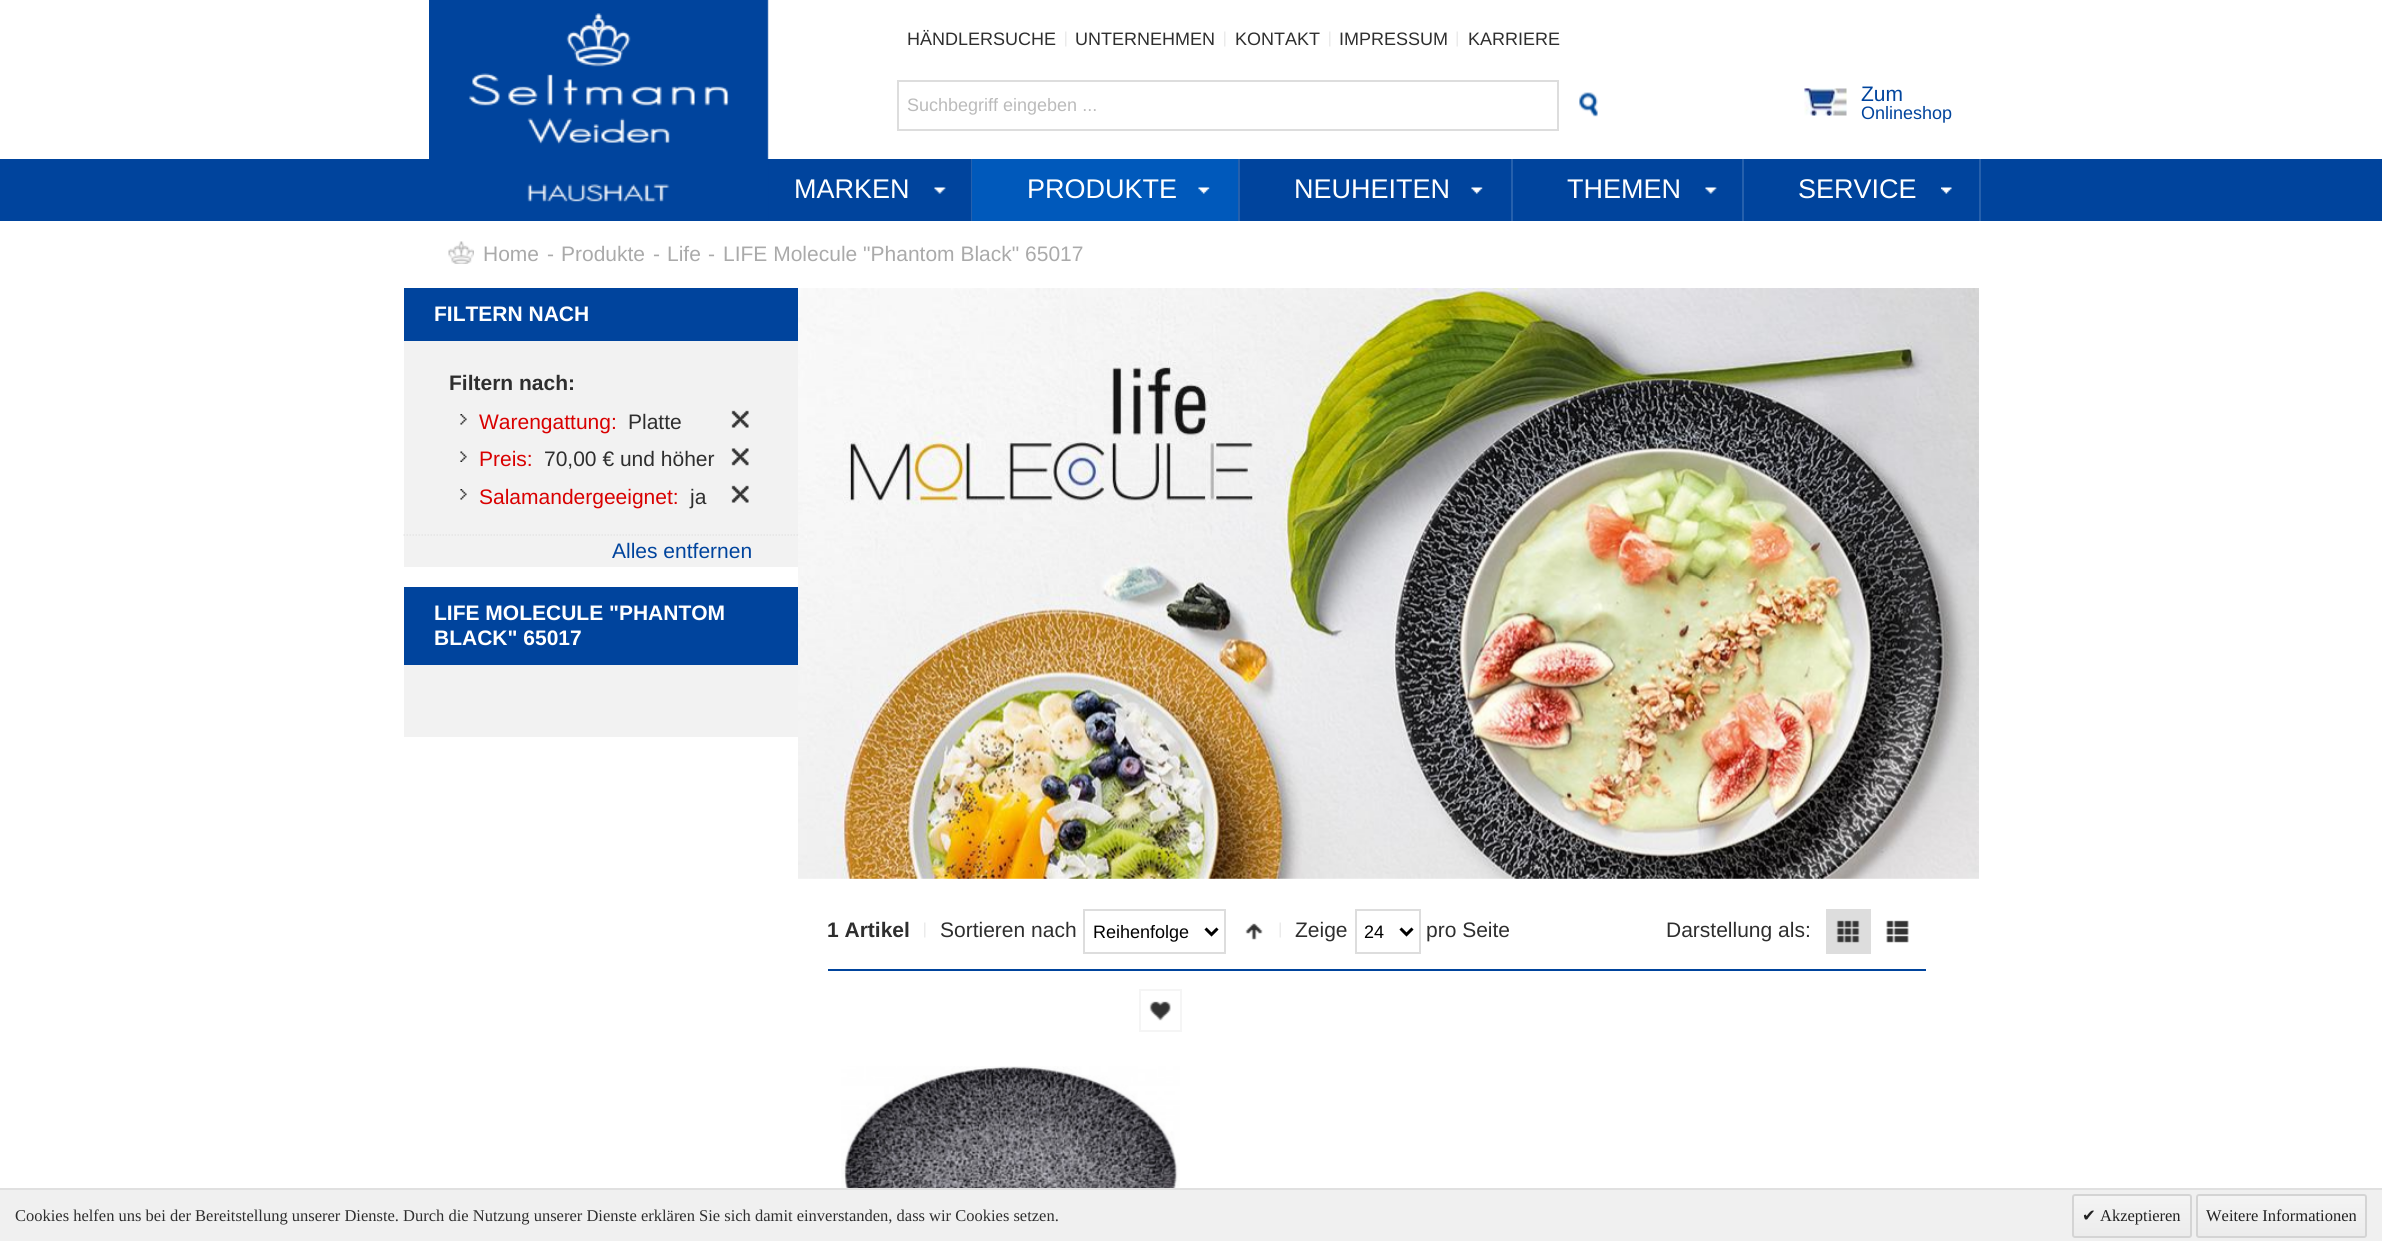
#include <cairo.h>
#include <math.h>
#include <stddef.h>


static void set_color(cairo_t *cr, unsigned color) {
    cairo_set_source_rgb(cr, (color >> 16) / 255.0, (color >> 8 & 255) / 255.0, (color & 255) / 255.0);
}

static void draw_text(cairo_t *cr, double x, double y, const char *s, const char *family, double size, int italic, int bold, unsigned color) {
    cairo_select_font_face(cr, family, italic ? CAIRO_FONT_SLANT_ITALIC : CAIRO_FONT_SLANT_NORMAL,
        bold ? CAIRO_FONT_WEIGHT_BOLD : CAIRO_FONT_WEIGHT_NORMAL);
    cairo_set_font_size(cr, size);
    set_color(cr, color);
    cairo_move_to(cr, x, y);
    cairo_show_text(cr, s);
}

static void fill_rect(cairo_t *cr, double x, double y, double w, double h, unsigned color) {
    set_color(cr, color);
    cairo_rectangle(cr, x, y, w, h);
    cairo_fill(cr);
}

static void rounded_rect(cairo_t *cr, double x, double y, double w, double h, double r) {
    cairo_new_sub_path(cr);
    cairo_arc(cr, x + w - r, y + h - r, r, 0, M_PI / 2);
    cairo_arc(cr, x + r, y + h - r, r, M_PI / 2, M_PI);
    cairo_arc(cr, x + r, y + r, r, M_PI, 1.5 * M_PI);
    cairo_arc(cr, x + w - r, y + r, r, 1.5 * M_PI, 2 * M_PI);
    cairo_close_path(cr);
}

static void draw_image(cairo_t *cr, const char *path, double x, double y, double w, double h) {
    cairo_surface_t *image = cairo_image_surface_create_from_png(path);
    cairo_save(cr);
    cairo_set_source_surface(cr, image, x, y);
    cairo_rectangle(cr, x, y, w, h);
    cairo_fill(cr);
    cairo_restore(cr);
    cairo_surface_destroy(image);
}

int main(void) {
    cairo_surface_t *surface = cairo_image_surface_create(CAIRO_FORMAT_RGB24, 2382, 1241);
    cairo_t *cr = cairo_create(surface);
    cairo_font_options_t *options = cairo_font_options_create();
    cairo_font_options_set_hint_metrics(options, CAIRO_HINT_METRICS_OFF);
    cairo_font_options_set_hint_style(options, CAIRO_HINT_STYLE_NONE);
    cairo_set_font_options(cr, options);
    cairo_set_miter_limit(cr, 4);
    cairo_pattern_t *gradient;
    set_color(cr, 0xFFFFFF);
    cairo_paint(cr);
    fill_rect(cr, 0, 159, 2382, 62, 0x00449D);
    draw_image(cr, "assets/img1.png", 429, 0, 340, 221);
    draw_image(cr, "assets/img2.png", 1065, 31, 2, 16);
    draw_text(cr, 907, 45, "HÄNDLERSUCHE", "Liberation Sans", 18, 0, 0, 0x2E2E2E);
    draw_image(cr, "assets/img2.png", 1224, 31, 2, 16);
    draw_text(cr, 1075, 45, "UNTERNEHMEN", "Liberation Sans", 18, 0, 0, 0x2E2E2E);
    draw_image(cr, "assets/img2.png", 1329, 31, 2, 16);
    draw_text(cr, 1235, 45, "KONTAKT", "Liberation Sans", 18, 0, 0, 0x2E2E2E);
    draw_image(cr, "assets/img3.png", 1456, 31, 2, 16);
    draw_text(cr, 1339, 45, "IMPRESSUM", "Liberation Sans", 18, 0, 0, 0x2E2E2E);
    draw_text(cr, 1468, 45, "KARRIERE", "Liberation Sans", 18, 0, 0, 0x2E2E2E);
    cairo_rectangle(cr, 898, 81, 660, 49);
    set_color(cr, 0xDDDDDD);
    cairo_stroke(cr);
    draw_text(cr, 907, 111, "Suchbegriff eingeben ...", "Liberation Sans", 18, 0, 0, 0xBBBBBB);
    draw_image(cr, "assets/img4.png", 1579, 92, 19, 25);
    draw_image(cr, "assets/img5.png", 1804, 88, 43, 28);
    draw_text(cr, 1861, 101, "Zum", "Liberation Sans", 21, 0, 0, 0x00449D);
    draw_text(cr, 1861, 119, "Onlineshop", "Liberation Sans", 18, 0, 0, 0x00449D);
    fill_rect(cr, 1979, 159, 2, 62, 0x2660AC);
    draw_image(cr, "assets/img6.png", 934, 187, 12, 7);
    draw_text(cr, 794, 198, "MARKEN", "Liberation Sans", 27, 0, 0, 0xFFFFFF);
    fill_rect(cr, 971, 159, 1, 62, 0x2660AC);
    fill_rect(cr, 972, 159, 266, 62, 0x0059BB);
    draw_image(cr, "assets/img7.png", 1198, 187, 12, 7);
    draw_text(cr, 1027, 198, "PRODUKTE", "Liberation Sans", 27, 0, 0, 0xFFFFFF);
    fill_rect(cr, 1238, 159, 2, 62, 0x2660AC);
    draw_image(cr, "assets/img8.png", 1471, 187, 12, 7);
    draw_text(cr, 1294, 198, "NEUHEITEN", "Liberation Sans", 27, 0, 0, 0xFFFFFF);
    fill_rect(cr, 1511, 159, 2, 62, 0x2660AC);
    draw_image(cr, "assets/img6.png", 1705, 187, 12, 7);
    draw_text(cr, 1567, 198, "THEMEN", "Liberation Sans", 27, 0, 0, 0xFFFFFF);
    fill_rect(cr, 1742, 159, 2, 62, 0x2660AC);
    draw_image(cr, "assets/img9.png", 1941, 187, 11, 7);
    draw_text(cr, 1798, 198, "SERVICE", "Liberation Sans", 27, 0, 0, 0xFFFFFF);
    draw_image(cr, "assets/img10.png", 448, 241, 26, 23);
    draw_text(cr, 483, 261, "Home", "Liberation Sans", 21, 0, 0, 0xAAAAAA);
    draw_text(cr, 547, 261, "-", "Liberation Sans", 21, 0, 0, 0xAAAAAA);
    draw_text(cr, 561, 261, "Produkte", "Liberation Sans", 21, 0, 0, 0xAAAAAA);
    draw_text(cr, 653, 261, "-", "Liberation Sans", 21, 0, 0, 0xAAAAAA);
    draw_text(cr, 667, 261, "Life", "Liberation Sans", 21, 0, 0, 0xAAAAAA);
    draw_text(cr, 708, 261, "-", "Liberation Sans", 21, 0, 0, 0xAAAAAA);
    draw_text(cr, 723, 261, "LIFE Molecule \"Phantom Black\" 65017", "Liberation Sans", 21, 0, 0, 0xAAAAAA);
    fill_rect(cr, 404, 341, 394, 226, 0xF2F2F2);
    fill_rect(cr, 404, 288, 394, 53, 0x00449D);
    draw_text(cr, 434, 321, "FILTERN NACH", "Liberation Sans", 21, 0, 1, 0xFFFFFF);
    draw_text(cr, 449, 390, "Filtern nach:", "Liberation Sans", 21, 0, 1, 0x2E2E2E);
    draw_image(cr, "assets/img11.png", 460, 414, 7, 11);
    draw_text(cr, 479, 429, "Warengattung:", "Liberation Sans", 21, 0, 0, 0xD90000);
    draw_text(cr, 628, 429, "Platte", "Liberation Sans", 21, 0, 0, 0x2E2E2E);
    draw_image(cr, "assets/img12.png", 731, 410, 18, 18);
    draw_image(cr, "assets/img13.png", 460, 451, 7, 11);
    draw_text(cr, 479, 466, "Preis:", "Liberation Sans", 21, 0, 0, 0xD90000);
    draw_text(cr, 544, 466, "70,00 € und höher", "Liberation Sans", 21, 0, 0, 0x2E2E2E);
    draw_image(cr, "assets/img14.png", 731, 448, 18, 18);
    draw_image(cr, "assets/img11.png", 460, 489, 7, 11);
    draw_text(cr, 479, 504, "Salamandergeeignet:", "Liberation Sans", 21, 0, 0, 0xD90000);
    draw_text(cr, 690, 504, "ja", "Liberation Sans", 21, 0, 0, 0x2E2E2E);
    draw_image(cr, "assets/img12.png", 731, 485, 18, 18);
    cairo_new_path(cr);
    cairo_move_to(cr, 403.5, 535);
    cairo_line_to(cr, 798, 535);
    set_color(cr, 0xE5E5E5);
    cairo_set_line_width(cr, 1.5);
    cairo_set_dash(cr, (double[]){1.5, 1.5}, 2, 0);
    cairo_stroke(cr);
    draw_text(cr, 612, 558, "Alles entfernen", "Liberation Sans", 21, 0, 0, 0x00449D);
    fill_rect(cr, 404, 665, 394, 72, 0xF2F2F2);
    fill_rect(cr, 404, 587, 394, 78, 0x00449D);
    draw_text(cr, 434, 620, "LIFE MOLECULE \"PHANTOM", "Liberation Sans", 21, 0, 1, 0xFFFFFF);
    draw_text(cr, 434, 645, "BLACK\" 65017", "Liberation Sans", 21, 0, 1, 0xFFFFFF);
    draw_image(cr, "assets/img15.png", 798, 288, 1181, 591);
    fill_rect(cr, 828, 969, 1098, 2, 0x00449D);
    draw_image(cr, "assets/img2.png", 924, 922, 2, 16);
    draw_text(cr, 827, 937, "1 Artikel", "Liberation Sans", 21, 0, 1, 0x2E2E2E);
    draw_image(cr, "assets/img3.png", 1279, 922, 2, 16);
    draw_text(cr, 940, 937, "Sortieren nach", "Liberation Sans", 21, 0, 0, 0x2E2E2E);
    cairo_rectangle(cr, 1084, 910, 141, 43);
    set_color(cr, 0xDDDDDD);
    cairo_set_line_width(cr, 2);
    cairo_set_dash(cr, NULL, 0, 0);
    cairo_stroke(cr);
    cairo_new_path(cr);
    cairo_move_to(cr, 1205.5, 928.5);
    cairo_line_to(cr, 1211.5, 934.5);
    cairo_line_to(cr, 1217.5, 928.5);
    set_color(cr, 0x000000);
    cairo_set_line_width(cr, 3);
    cairo_stroke(cr);
    draw_text(cr, 1093, 938, "Reihenfolge", "Liberation Sans", 18, 0, 0, 0x000000);
    draw_image(cr, "assets/img16.png", 1245, 923, 18, 17);
    draw_text(cr, 1295, 937, "Zeige", "Liberation Sans", 21, 0, 0, 0x2E2E2E);
    cairo_rectangle(cr, 1356, 910, 64, 43);
    set_color(cr, 0xDDDDDD);
    cairo_set_line_width(cr, 2);
    cairo_stroke(cr);
    cairo_new_path(cr);
    cairo_move_to(cr, 1400.5, 928.5);
    cairo_line_to(cr, 1406.5, 934.5);
    cairo_line_to(cr, 1412.5, 928.5);
    set_color(cr, 0x000000);
    cairo_set_line_width(cr, 3);
    cairo_stroke(cr);
    draw_text(cr, 1364, 938, "24", "Liberation Sans", 18, 0, 0, 0x000000);
    draw_text(cr, 1426, 937, "pro Seite", "Liberation Sans", 21, 0, 0, 0x2E2E2E);
    draw_text(cr, 1666, 937, "Darstellung als:", "Liberation Sans", 21, 0, 0, 0x2E2E2E);
    fill_rect(cr, 1826, 909, 45, 45, 0xDDDDDD);
    draw_image(cr, "assets/img17.png", 1836, 920, 24, 23);
    draw_image(cr, "assets/img18.png", 1886, 920, 23, 23);
    draw_image(cr, "assets/img19.png", 1149, 1001, 22, 20);
    cairo_rectangle(cr, 1140, 990, 41, 41);
    set_color(cr, 0xF5F5F5);
    cairo_set_line_width(cr, 2);
    cairo_stroke(cr);
    draw_image(cr, "assets/img20.png", 841, 1066, 339, 122);
    fill_rect(cr, 0, 1190, 2382, 51, 0xF0F0F0);
    fill_rect(cr, 0, 1188, 2382, 2, 0xE0E0E0);
    draw_text(cr, 15, 1221, "Cookies helfen uns bei der Bereitstellung unserer Dienste. Durch die Nutzung unserer Dienste erklären Sie sich damit einverstanden, dass wir Cookies setzen.", "Liberation Serif", 16.5, 0, 0, 0x2E2E2E);
    cairo_save(cr);
    rounded_rect(cr, 2072, 1194, 120, 44, 3);
    cairo_clip(cr);
    gradient = cairo_pattern_create_linear(2132, 1196, 2132, 1236);
    cairo_pattern_add_color_stop_rgba(gradient, 0, 0.957, 0.957, 0.957, 1);
    cairo_pattern_add_color_stop_rgba(gradient, 1, 0.925, 0.925, 0.925, 1);
    cairo_set_source(cr, gradient);
    cairo_pattern_destroy(gradient);
    cairo_rectangle(cr, 2072, 1196, 120, 40);
    cairo_fill(cr);
    cairo_restore(cr);
    rounded_rect(cr, 2073, 1195, 118, 42, 2);
    set_color(cr, 0xD4D4D4);
    cairo_stroke(cr);
    draw_text(cr, 2082, 1221, "✔", "DejaVu Sans", 16.5, 0, 0, 0x222222);
    draw_text(cr, 2100, 1221, "Akzeptieren", "Liberation Serif", 16.5, 0, 0, 0x222222);
    cairo_save(cr);
    rounded_rect(cr, 2196, 1194, 171, 44, 3);
    cairo_clip(cr);
    gradient = cairo_pattern_create_linear(2282, 1196, 2282, 1236);
    cairo_pattern_add_color_stop_rgba(gradient, 0, 0.957, 0.957, 0.957, 1);
    cairo_pattern_add_color_stop_rgba(gradient, 1, 0.925, 0.925, 0.925, 1);
    cairo_set_source(cr, gradient);
    cairo_pattern_destroy(gradient);
    cairo_rectangle(cr, 2196, 1196, 171, 40);
    cairo_fill(cr);
    cairo_restore(cr);
    rounded_rect(cr, 2197, 1195, 169, 42, 2);
    set_color(cr, 0xD4D4D4);
    cairo_stroke(cr);
    draw_text(cr, 2206, 1221, "Weitere Informationen", "Liberation Serif", 16.5, 0, 0, 0x222222);
    cairo_surface_write_to_png(surface, "output.png");
    cairo_font_options_destroy(options);
    cairo_destroy(cr);
    cairo_surface_destroy(surface);
    return 0;
}
